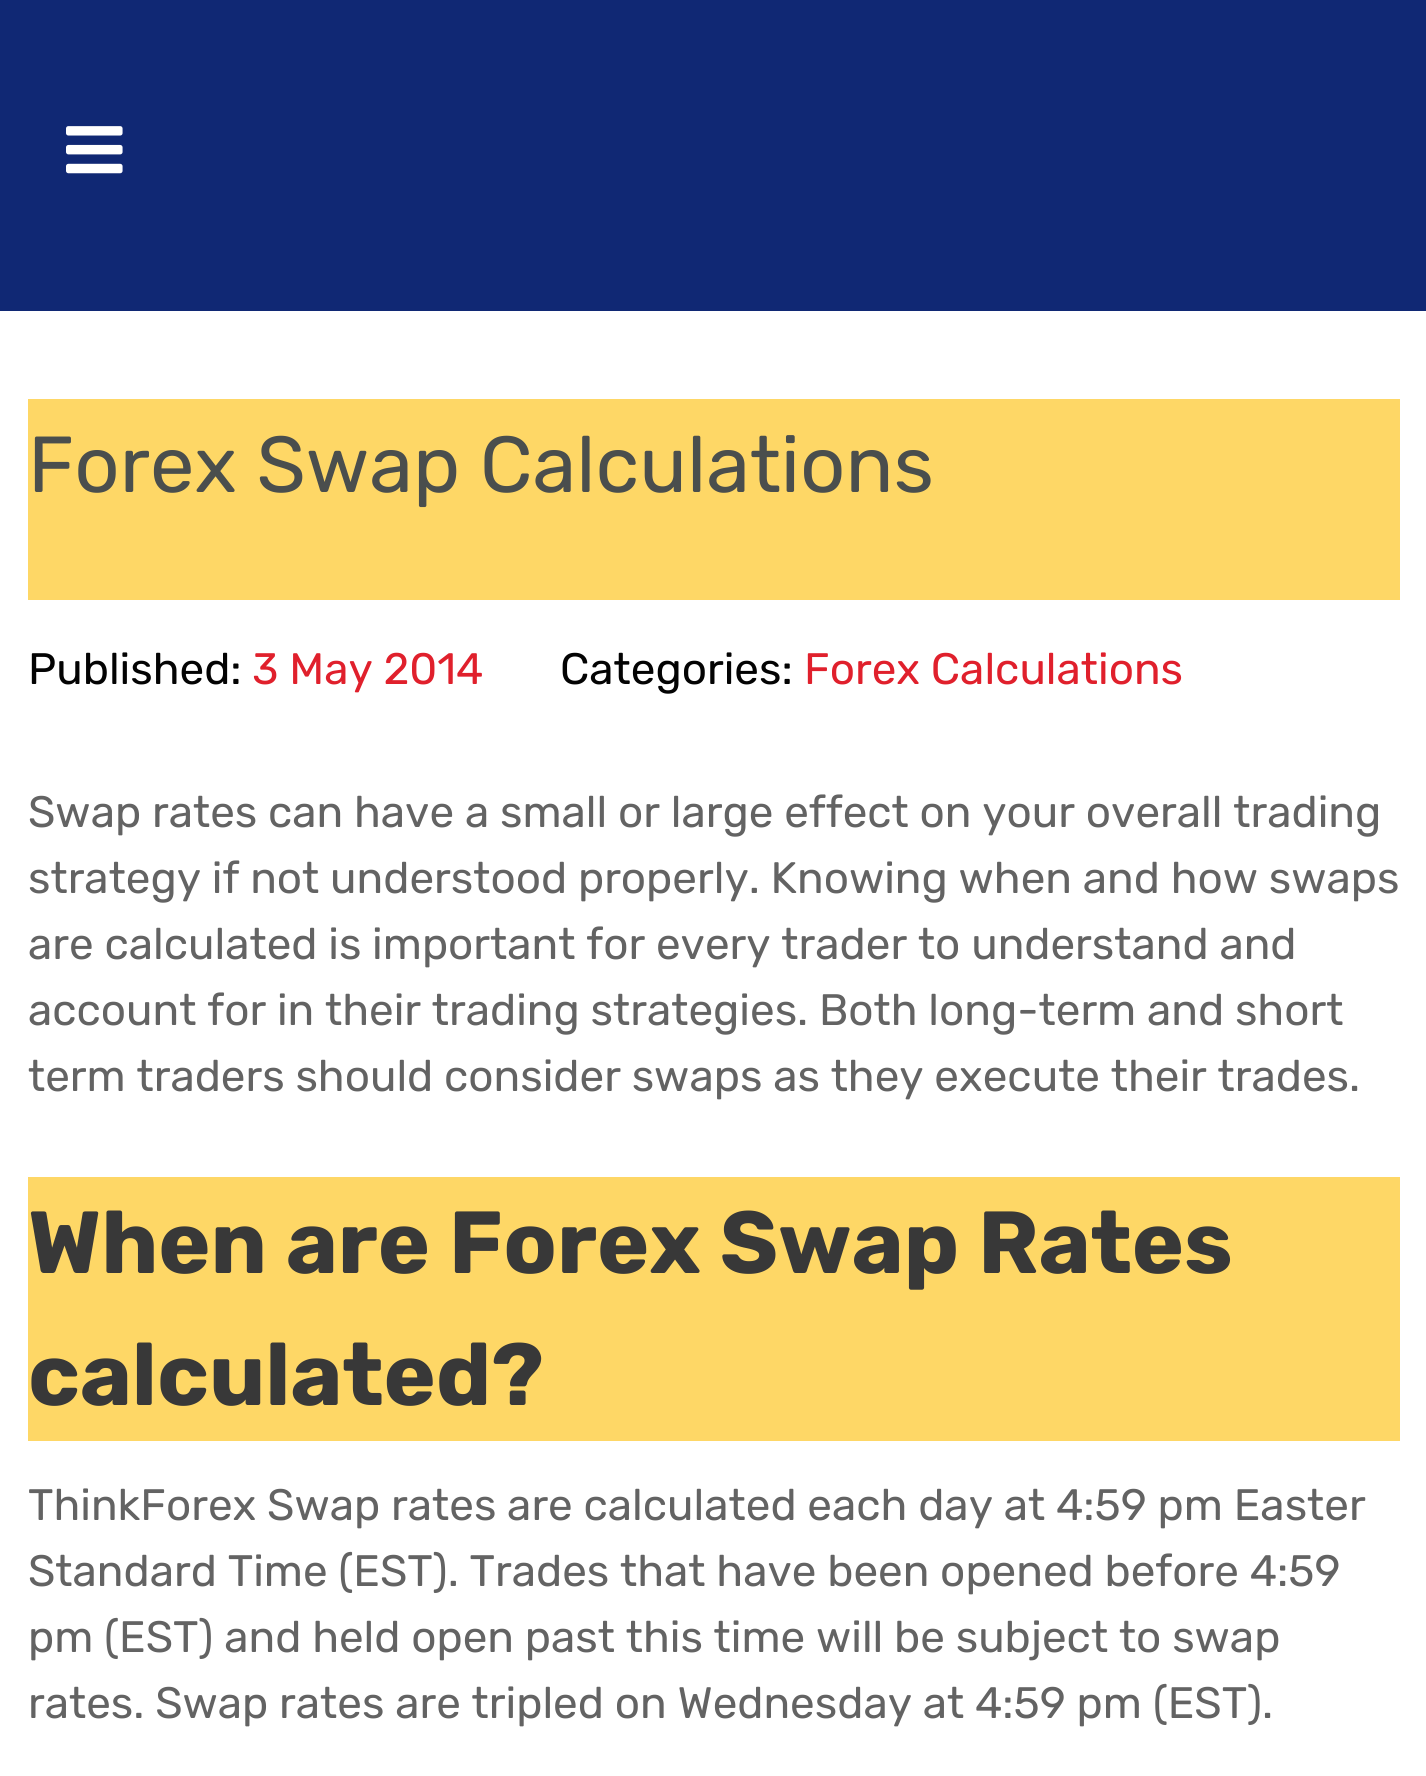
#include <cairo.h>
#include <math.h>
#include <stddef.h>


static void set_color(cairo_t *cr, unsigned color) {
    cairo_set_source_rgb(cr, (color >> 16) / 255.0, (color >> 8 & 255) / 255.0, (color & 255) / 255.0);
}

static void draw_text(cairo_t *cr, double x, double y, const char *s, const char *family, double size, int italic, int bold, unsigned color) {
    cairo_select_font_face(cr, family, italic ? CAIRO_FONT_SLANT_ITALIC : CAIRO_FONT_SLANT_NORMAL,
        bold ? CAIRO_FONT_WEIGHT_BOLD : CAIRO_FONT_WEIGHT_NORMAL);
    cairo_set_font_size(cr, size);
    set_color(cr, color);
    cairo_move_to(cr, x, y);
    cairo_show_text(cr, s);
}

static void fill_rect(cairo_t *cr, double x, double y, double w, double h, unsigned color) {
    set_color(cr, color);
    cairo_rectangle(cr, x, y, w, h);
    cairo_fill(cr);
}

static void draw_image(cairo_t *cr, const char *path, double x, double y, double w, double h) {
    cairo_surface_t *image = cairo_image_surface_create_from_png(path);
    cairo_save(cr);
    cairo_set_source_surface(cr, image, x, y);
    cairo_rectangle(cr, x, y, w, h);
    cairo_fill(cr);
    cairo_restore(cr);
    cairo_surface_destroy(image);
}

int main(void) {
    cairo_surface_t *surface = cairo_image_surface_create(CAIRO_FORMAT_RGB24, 1426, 1776);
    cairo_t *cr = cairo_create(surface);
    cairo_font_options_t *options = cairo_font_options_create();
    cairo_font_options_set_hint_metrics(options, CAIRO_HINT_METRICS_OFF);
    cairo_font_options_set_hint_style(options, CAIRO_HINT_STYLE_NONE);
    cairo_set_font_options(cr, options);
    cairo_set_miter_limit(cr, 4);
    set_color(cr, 0xFFFFFF);
    cairo_paint(cr);
    fill_rect(cr, 0, 0, 1426, 311, 0x102874);
    draw_image(cr, "assets/img1.png", 66, 126, 57, 48);
    fill_rect(cr, 28, 399, 1372, 201, 0xFED766);
    draw_text(cr, 28, 492, "Forex Swap Calculations", "Rubik", 79.25, 0, 0, 0x4A4E4D);
    draw_text(cr, 28, 684, "Published:", "Rubik", 44, 0, 0, 0x030303);
    draw_text(cr, 252, 684, "3 May 2014", "Rubik", 44, 0, 0, 0xE0202C);
    draw_text(cr, 560, 684, "Categories:", "Rubik", 44, 0, 0, 0x030303);
    draw_text(cr, 804, 684, "Forex Calculations", "Rubik", 44, 0, 0, 0xE0202C);
    draw_text(cr, 28, 827, "Swap rates can have a small or large effect on your overall trading", "Rubik", 44, 0, 0, 0x636363);
    draw_text(cr, 28, 893, "strategy if not understood properly. Knowing when and how swaps", "Rubik", 44, 0, 0, 0x636363);
    draw_text(cr, 28, 959, "are calculated is important for every trader to understand and", "Rubik", 44, 0, 0, 0x636363);
    draw_text(cr, 28, 1025, "account for in their trading strategies. Both long-term and short", "Rubik", 44, 0, 0, 0x636363);
    draw_text(cr, 28, 1091, "term traders should consider swaps as they execute their trades.", "Rubik", 44, 0, 0, 0x636363);
    fill_rect(cr, 28, 1177, 1372, 264, 0xFED766);
    draw_text(cr, 28, 1273, "When are Forex Swap Rates", "Rubik", 88, 0, 1, 0x383838);
    draw_text(cr, 28, 1405, "calculated?", "Rubik", 88, 0, 1, 0x383838);
    draw_text(cr, 28, 1520, "ThinkForex Swap rates are calculated each day at 4:59 pm Easter", "Rubik", 44, 0, 0, 0x636363);
    draw_text(cr, 28, 1586, "Standard Time (EST). Trades that have been opened before 4:59", "Rubik", 44, 0, 0, 0x636363);
    draw_text(cr, 28, 1652, "pm (EST) and held open past this time will be subject to swap", "Rubik", 44, 0, 0, 0x636363);
    draw_text(cr, 28, 1718, "rates. Swap rates are tripled on Wednesday at 4:59 pm (EST).", "Rubik", 44, 0, 0, 0x636363);
    cairo_surface_write_to_png(surface, "output.png");
    cairo_font_options_destroy(options);
    cairo_destroy(cr);
    cairo_surface_destroy(surface);
    return 0;
}
